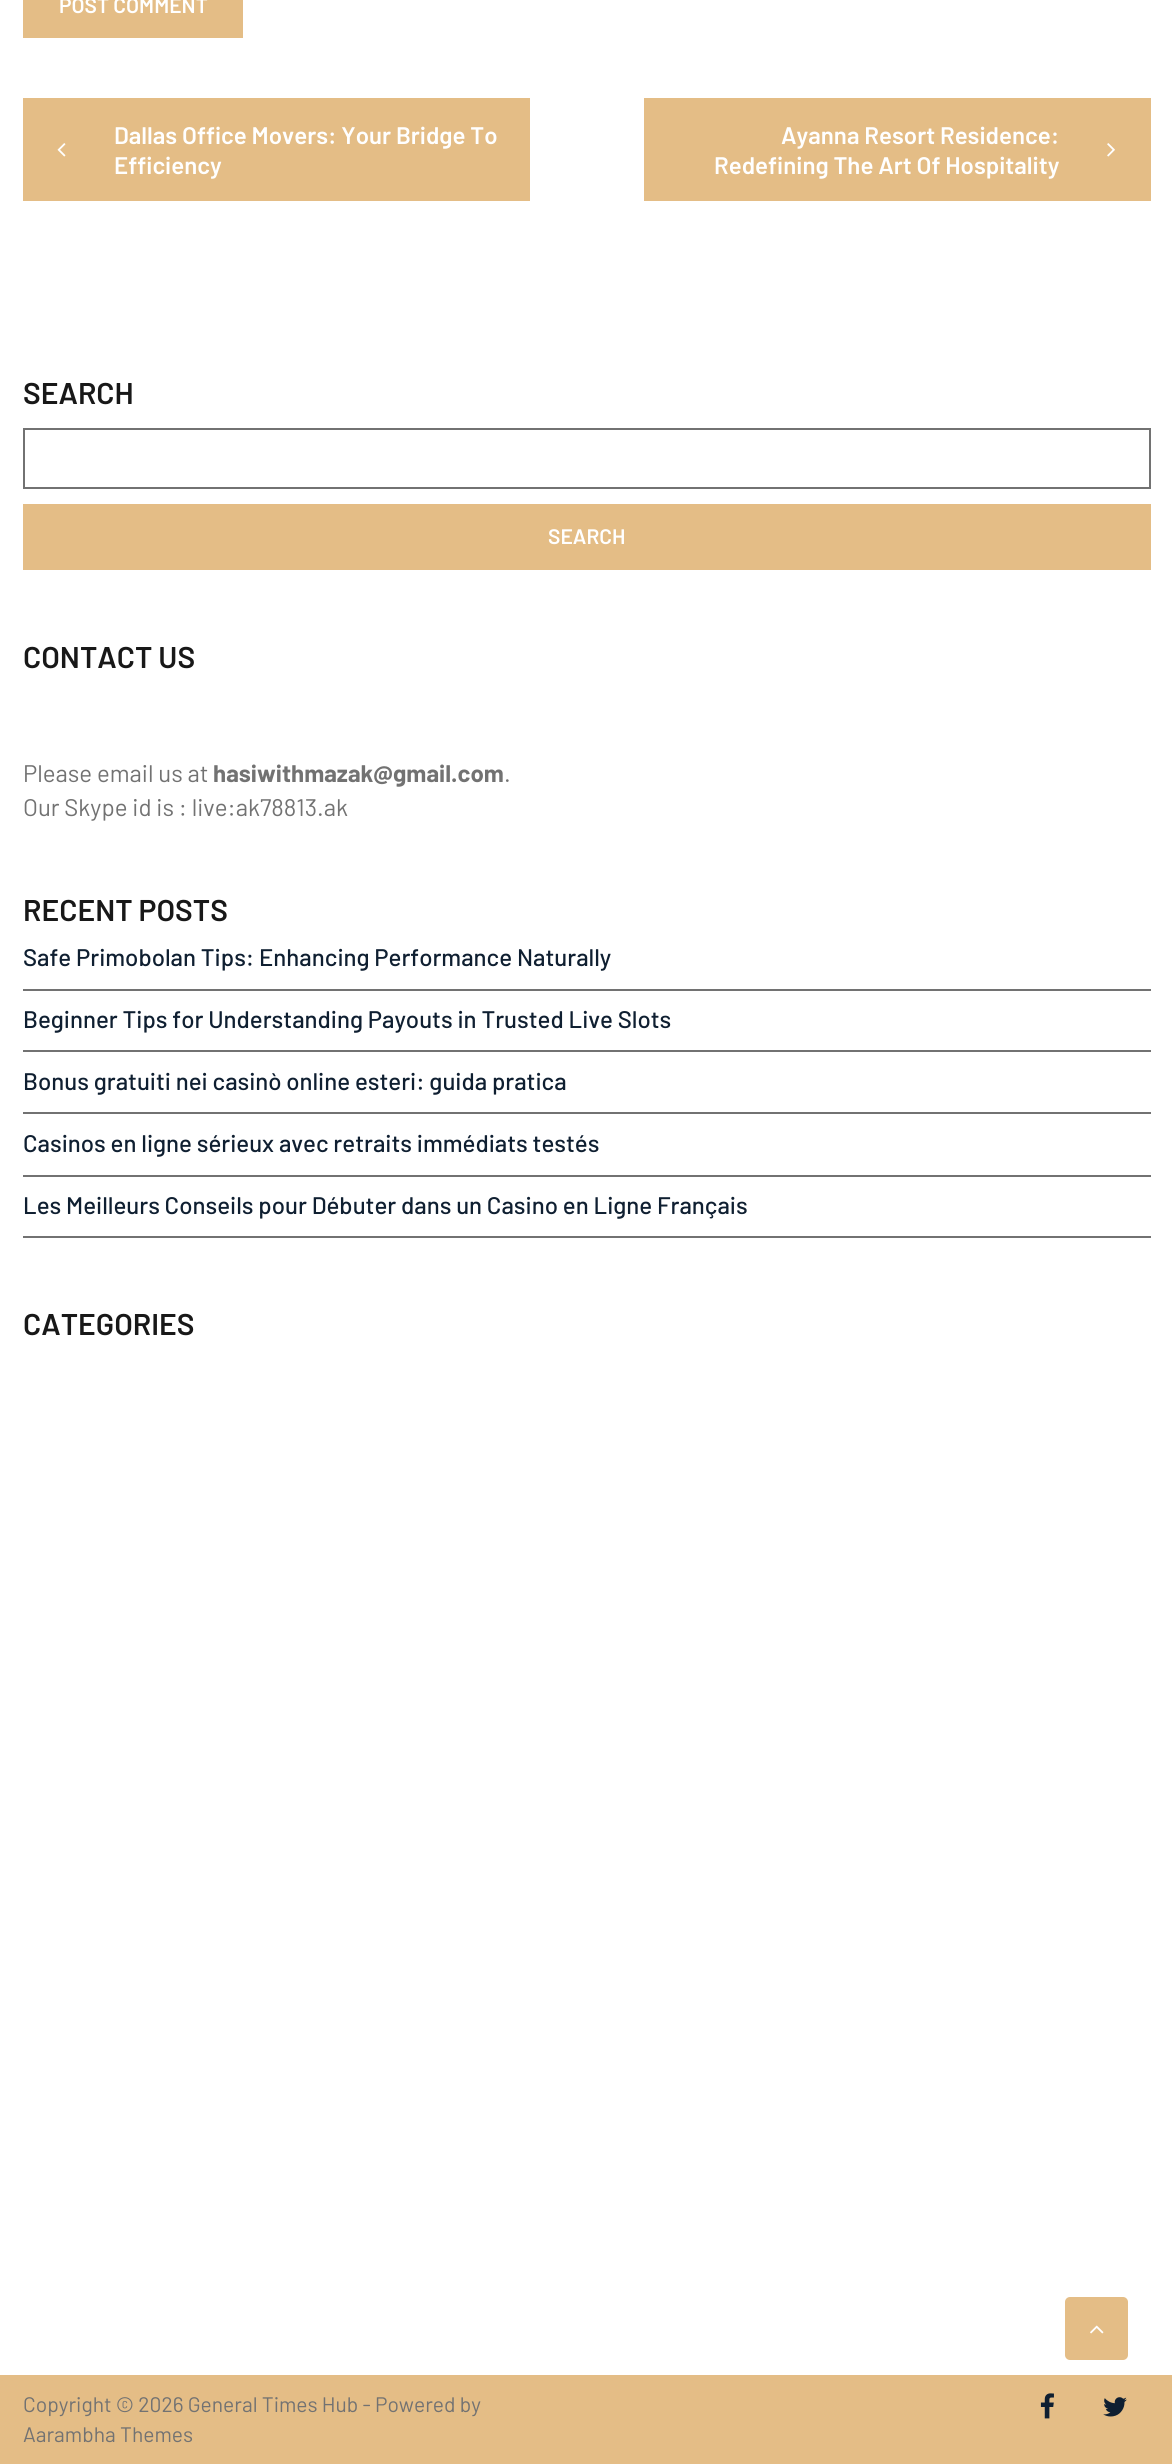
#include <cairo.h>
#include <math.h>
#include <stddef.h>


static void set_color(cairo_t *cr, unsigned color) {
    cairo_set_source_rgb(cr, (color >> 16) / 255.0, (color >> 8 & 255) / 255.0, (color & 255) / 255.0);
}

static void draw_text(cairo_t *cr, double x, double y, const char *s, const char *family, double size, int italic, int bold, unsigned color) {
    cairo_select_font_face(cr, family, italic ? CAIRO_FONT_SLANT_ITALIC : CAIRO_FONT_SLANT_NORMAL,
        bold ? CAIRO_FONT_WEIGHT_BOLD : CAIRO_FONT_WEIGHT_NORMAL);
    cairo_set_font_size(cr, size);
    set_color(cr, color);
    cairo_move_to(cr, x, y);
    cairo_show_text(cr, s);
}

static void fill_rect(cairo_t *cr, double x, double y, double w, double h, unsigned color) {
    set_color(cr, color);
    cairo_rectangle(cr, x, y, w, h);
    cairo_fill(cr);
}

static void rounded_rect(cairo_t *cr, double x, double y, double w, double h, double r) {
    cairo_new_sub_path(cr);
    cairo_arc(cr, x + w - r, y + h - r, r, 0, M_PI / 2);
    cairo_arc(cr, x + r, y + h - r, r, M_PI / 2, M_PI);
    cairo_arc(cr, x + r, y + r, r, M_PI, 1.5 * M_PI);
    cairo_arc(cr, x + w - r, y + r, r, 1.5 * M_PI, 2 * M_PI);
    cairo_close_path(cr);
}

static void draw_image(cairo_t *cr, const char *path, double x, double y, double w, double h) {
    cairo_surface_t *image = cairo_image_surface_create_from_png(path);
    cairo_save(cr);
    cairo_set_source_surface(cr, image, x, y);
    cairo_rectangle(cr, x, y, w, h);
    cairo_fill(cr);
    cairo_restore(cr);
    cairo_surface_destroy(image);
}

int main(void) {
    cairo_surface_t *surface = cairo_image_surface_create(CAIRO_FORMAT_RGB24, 1172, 2464);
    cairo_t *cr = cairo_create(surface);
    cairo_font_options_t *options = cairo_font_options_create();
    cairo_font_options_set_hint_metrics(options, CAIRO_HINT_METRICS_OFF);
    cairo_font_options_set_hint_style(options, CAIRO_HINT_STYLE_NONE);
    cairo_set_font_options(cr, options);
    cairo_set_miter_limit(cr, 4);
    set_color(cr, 0xFFFFFF);
    cairo_paint(cr);
    fill_rect(cr, 23, 0, 220, 38, 0xE4BD86);
    draw_text(cr, 59, 13, "POST COMMENT", "Barlow SemiBold", 21, 0, 0, 0xFFFFFF);
    fill_rect(cr, 23, 98, 507, 103, 0xE4BD86);
    draw_image(cr, "assets/img1.png", 57, 143, 9, 14);
    draw_text(cr, 114, 144, "Dallas Office Movers: Your Bridge To", "Barlow SemiBold", 24, 0, 0, 0xFFFFFF);
    draw_text(cr, 114, 174, "Efficiency", "Barlow SemiBold", 24, 0, 0, 0xFFFFFF);
    fill_rect(cr, 644, 98, 507, 103, 0xE4BD86);
    draw_text(cr, 781, 144, "Ayanna Resort Residence:", "Barlow SemiBold", 24, 0, 0, 0xFFFFFF);
    draw_text(cr, 714, 174, "Redefining The Art Of Hospitality", "Barlow SemiBold", 24, 0, 0, 0xFFFFFF);
    draw_image(cr, "assets/img2.png", 1107, 143, 8, 14);
    draw_text(cr, 23, 404, "SEARCH", "Barlow SemiBold", 30, 0, 0, 0x181818);
    cairo_rectangle(cr, 24, 429, 1126, 59);
    set_color(cr, 0x727272);
    cairo_stroke(cr);
    fill_rect(cr, 23, 504, 1128, 66, 0xE4BD86);
    draw_text(cr, 548, 544, "SEARCH", "Barlow SemiBold", 21, 0, 0, 0xFFFFFF);
    draw_text(cr, 23, 668, "CONTACT US", "Barlow SemiBold", 30, 0, 0, 0x181818);
    draw_text(cr, 23, 782, "Please email us at", "Barlow", 24, 0, 0, 0x727272);
    draw_text(cr, 213, 782, "hasiwithmazak@gmail.com", "Barlow", 24, 0, 1, 0x727272);
    draw_text(cr, 504, 782, ".", "Barlow", 24, 0, 0, 0x727272);
    draw_text(cr, 23, 816, "Our Skype id is : live:ak78813.ak", "Barlow", 24, 0, 0, 0x727272);
    draw_text(cr, 23, 921, "RECENT POSTS", "Barlow SemiBold", 30, 0, 0, 0x181818);
    fill_rect(cr, 23, 989, 1128, 2, 0x727272);
    draw_text(cr, 23, 966, "Safe Primobolan Tips: Enhancing Performance Naturally", "Barlow Medium", 24, 0, 0, 0x0F1F31);
    fill_rect(cr, 23, 1050, 1128, 2, 0x727272);
    draw_text(cr, 23, 1028, "Beginner Tips for Understanding Payouts in Trusted Live Slots", "Barlow Medium", 24, 0, 0, 0x0F1F31);
    fill_rect(cr, 23, 1112, 1128, 2, 0x727272);
    draw_text(cr, 23, 1090, "Bonus gratuiti nei casinò online esteri: guida pratica", "Barlow Medium", 24, 0, 0, 0x0F1F31);
    fill_rect(cr, 23, 1175, 1128, 2, 0x727272);
    draw_text(cr, 23, 1152, "Casinos en ligne sérieux avec retraits immédiats testés", "Barlow Medium", 24, 0, 0, 0x0F1F31);
    fill_rect(cr, 23, 1236, 1128, 2, 0x727272);
    draw_text(cr, 23, 1214, "Les Meilleurs Conseils pour Débuter dans un Casino en Ligne Français", "Barlow Medium", 24, 0, 0, 0x0F1F31);
    draw_text(cr, 23, 1335, "CATEGORIES", "Barlow SemiBold", 30, 0, 0, 0x181818);
    set_color(cr, 0xE4BD86);
    rounded_rect(cr, 1065, 2297, 63, 63, 5);
    cairo_fill(cr);
    draw_image(cr, "assets/img3.png", 1090, 2325, 14, 9);
    fill_rect(cr, 0, 2375, 1172, 89, 0xE4BD86);
    draw_text(cr, 23, 2412, "Copyright © 2026 General Times Hub - Powered by", "Barlow", 21, 0, 0, 0x727272);
    draw_text(cr, 23, 2442, "Aarambha Themes", "Barlow", 21, 0, 0, 0x727272);
    draw_image(cr, "assets/img4.png", 1040, 2393, 14, 26);
    draw_image(cr, "assets/img5.png", 1103, 2397, 24, 20);
    cairo_surface_write_to_png(surface, "output.png");
    cairo_font_options_destroy(options);
    cairo_destroy(cr);
    cairo_surface_destroy(surface);
    return 0;
}
